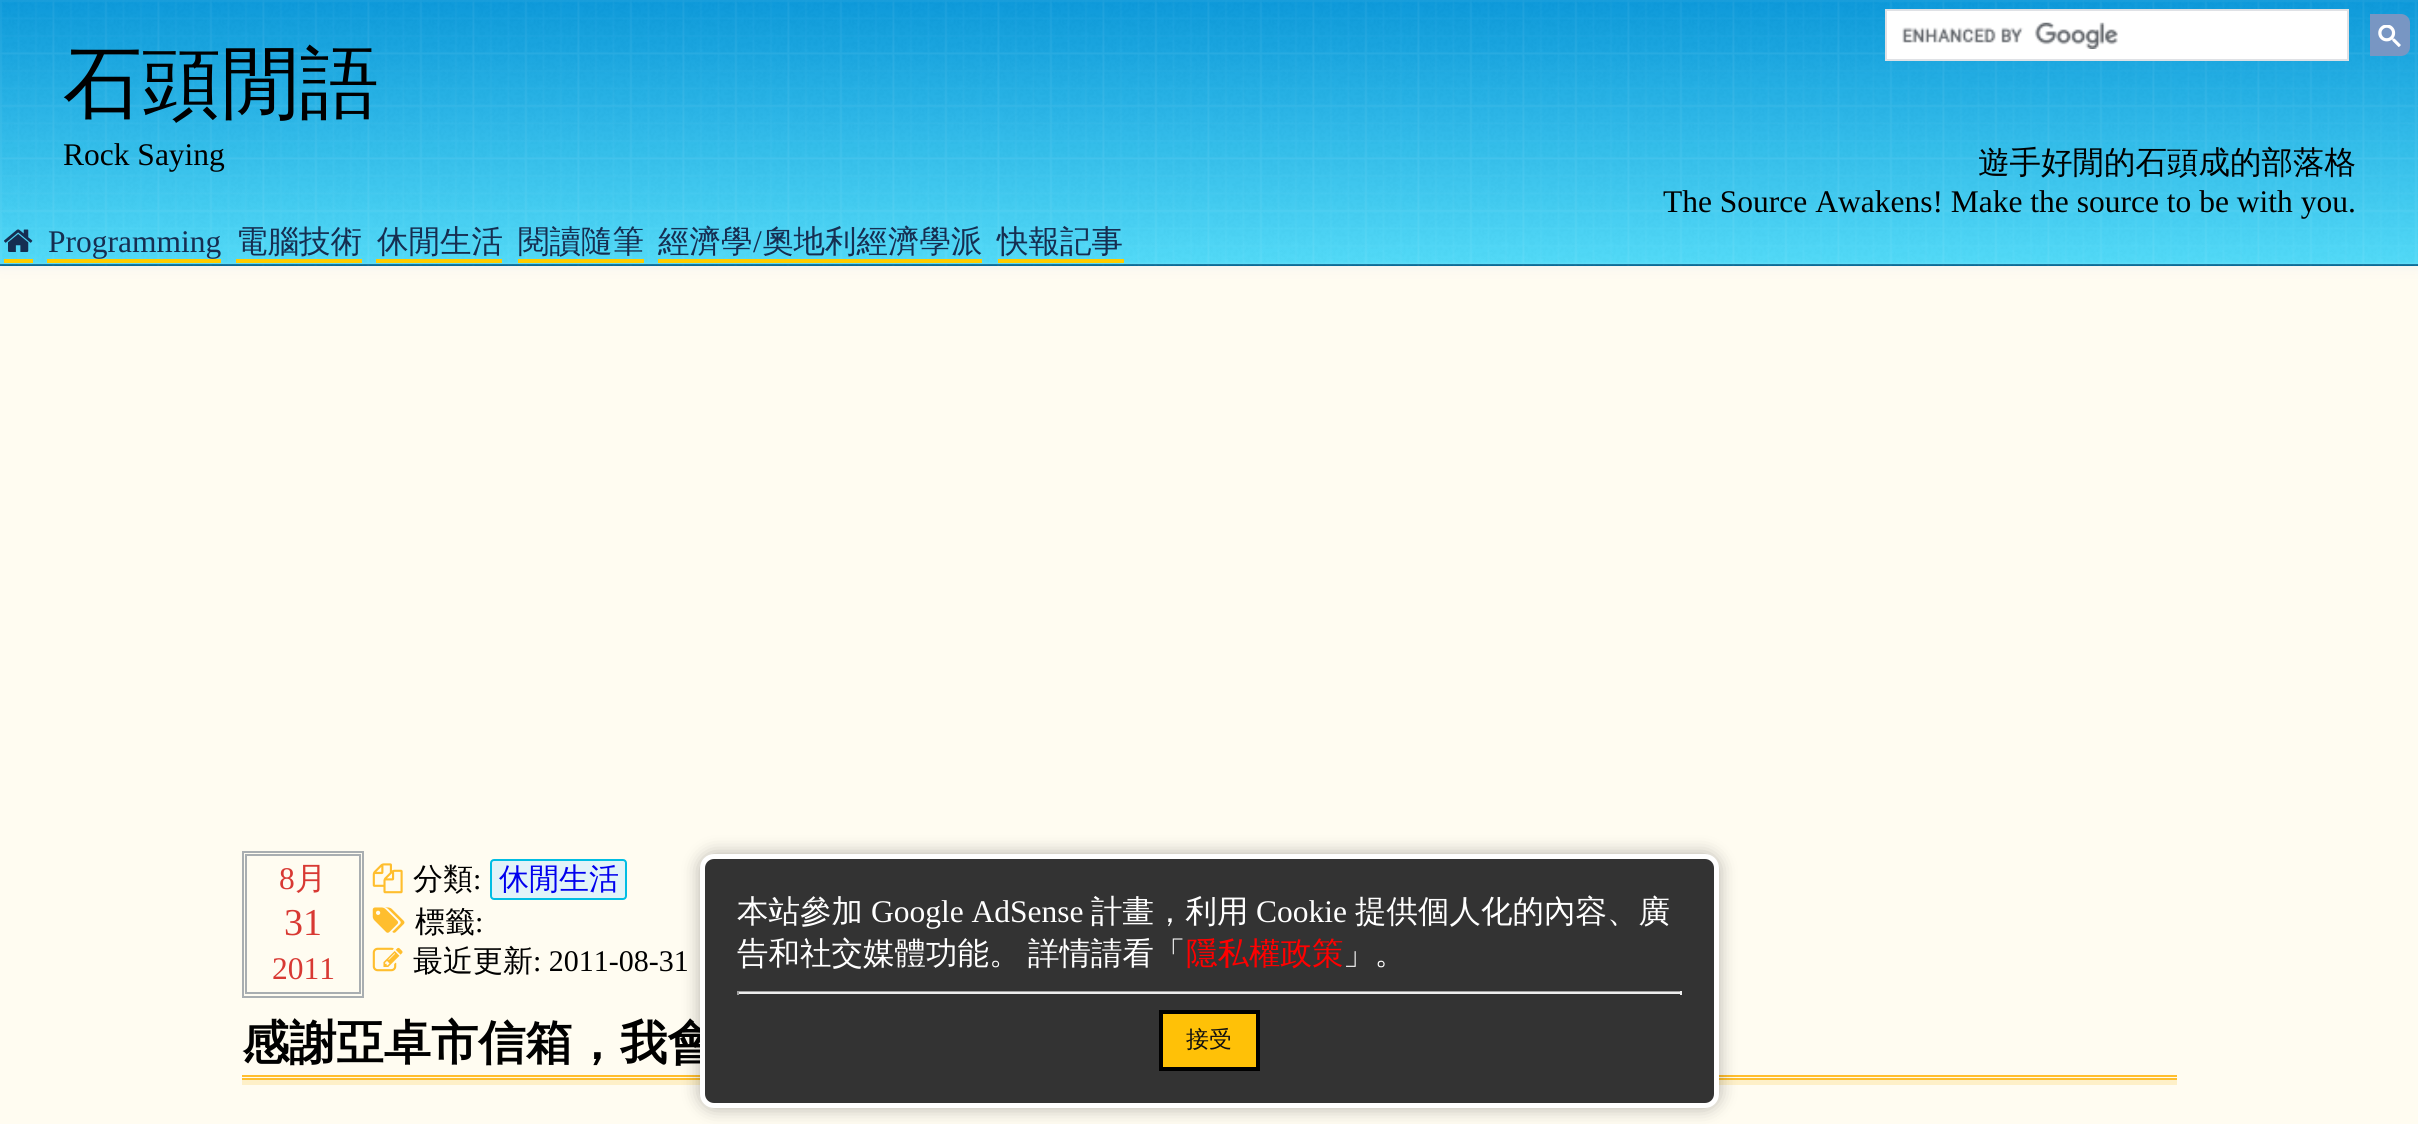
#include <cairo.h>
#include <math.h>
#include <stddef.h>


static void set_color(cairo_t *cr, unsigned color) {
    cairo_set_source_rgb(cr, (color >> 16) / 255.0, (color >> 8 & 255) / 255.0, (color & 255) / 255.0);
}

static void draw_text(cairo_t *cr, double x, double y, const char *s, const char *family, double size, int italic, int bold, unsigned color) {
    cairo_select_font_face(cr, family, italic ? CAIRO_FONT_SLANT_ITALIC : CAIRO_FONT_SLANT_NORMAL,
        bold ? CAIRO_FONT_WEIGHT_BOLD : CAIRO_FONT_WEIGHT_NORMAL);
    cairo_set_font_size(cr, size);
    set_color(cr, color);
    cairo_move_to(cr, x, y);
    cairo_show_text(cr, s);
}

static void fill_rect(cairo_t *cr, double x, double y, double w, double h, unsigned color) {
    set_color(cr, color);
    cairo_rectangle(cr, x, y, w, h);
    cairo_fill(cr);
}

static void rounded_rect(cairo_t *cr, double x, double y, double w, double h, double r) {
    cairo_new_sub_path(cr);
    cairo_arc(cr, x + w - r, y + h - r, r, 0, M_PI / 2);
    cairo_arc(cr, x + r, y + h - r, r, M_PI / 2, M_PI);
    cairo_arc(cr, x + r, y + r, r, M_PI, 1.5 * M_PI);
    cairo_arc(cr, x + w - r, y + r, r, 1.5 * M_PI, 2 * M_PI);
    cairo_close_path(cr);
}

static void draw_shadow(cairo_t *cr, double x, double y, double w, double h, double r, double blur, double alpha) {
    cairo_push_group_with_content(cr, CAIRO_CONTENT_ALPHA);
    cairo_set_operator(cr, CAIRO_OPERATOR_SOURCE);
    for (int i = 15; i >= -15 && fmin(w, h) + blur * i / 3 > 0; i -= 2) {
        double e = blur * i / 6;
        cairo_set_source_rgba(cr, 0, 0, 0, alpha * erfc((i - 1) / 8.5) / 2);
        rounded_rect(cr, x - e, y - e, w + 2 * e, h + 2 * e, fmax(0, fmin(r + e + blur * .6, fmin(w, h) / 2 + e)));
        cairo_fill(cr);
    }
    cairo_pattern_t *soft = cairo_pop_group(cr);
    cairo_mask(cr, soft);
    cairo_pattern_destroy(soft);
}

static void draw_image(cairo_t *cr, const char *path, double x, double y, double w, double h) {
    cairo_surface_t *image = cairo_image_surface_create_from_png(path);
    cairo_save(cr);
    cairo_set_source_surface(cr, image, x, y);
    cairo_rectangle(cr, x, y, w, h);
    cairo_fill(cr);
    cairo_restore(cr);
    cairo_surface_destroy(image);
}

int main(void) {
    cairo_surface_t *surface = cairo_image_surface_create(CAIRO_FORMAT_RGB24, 2418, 1124);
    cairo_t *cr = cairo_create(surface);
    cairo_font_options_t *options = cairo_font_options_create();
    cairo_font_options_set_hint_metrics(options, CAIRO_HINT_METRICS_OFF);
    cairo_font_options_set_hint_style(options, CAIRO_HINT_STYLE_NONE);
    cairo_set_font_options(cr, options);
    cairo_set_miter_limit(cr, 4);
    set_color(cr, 0xFFFCF1);
    cairo_paint(cr);
    set_color(cr, 0xF0F0F0);
    draw_shadow(cr, 0, 0, 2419, 266, 0, 7, 1);
    draw_image(cr, "assets/img1.png", 0, 0, 2418, 266);
    cairo_set_source_rgba(cr, 0, 0, 0, 0.3);
    cairo_rectangle(cr, 0, 264, 2418, 2);
    cairo_fill(cr);
    draw_text(cr, 63, 110, "石頭閒語", "WenQuanYi Zen Hei Medium", 79, 0, 0, 0x000000);
    draw_text(cr, 63, 165, "Rock Saying", "Liberation Serif", 31.5, 0, 0, 0x000000);
    draw_text(cr, 1978, 173, "遊手好閒的石頭成的部落格", "WenQuanYi Zen Hei Medium", 31.5, 0, 0, 0x000000);
    draw_text(cr, 1663, 212, "The Source Awakens! Make the source to be with you.", "Liberation Serif", 31.5, 0, 0, 0x000000);
    set_color(cr, 0xFFFFFF);
    cairo_rectangle(cr, 1886, 10, 462, 50);
    cairo_fill_preserve(cr);
    set_color(cr, 0xDFE1E5);
    cairo_stroke(cr);
    draw_image(cr, "assets/img2.png", 1902, 22, 216, 27);
    set_color(cr, 0x7896C3);
    cairo_new_path(cr);
    cairo_move_to(cr, 2370, 14);
    cairo_line_to(cr, 2401, 14);
    cairo_curve_to(cr, 2406, 14, 2410, 18, 2410, 23);
    cairo_line_to(cr, 2410, 47);
    cairo_curve_to(cr, 2410, 52, 2406, 56, 2401, 56);
    cairo_line_to(cr, 2370, 56);
    cairo_close_path(cr);
    cairo_fill(cr);
    draw_image(cr, "assets/img3.png", 2378, 25, 23, 22);
    draw_image(cr, "assets/img4.png", 4, 229, 29, 23);
    fill_rect(cr, 4, 259, 29, 4, 0xFFCC00);
    draw_text(cr, 48, 252, "Programming", "Liberation Serif", 31.5, 0, 0, 0x162E51);
    fill_rect(cr, 47, 259, 174, 4, 0xFFCC00);
    draw_text(cr, 236, 252, "電腦技術", "WenQuanYi Zen Hei Medium", 31.5, 0, 0, 0x162E51);
    fill_rect(cr, 236, 259, 126, 4, 0xFFCC00);
    draw_text(cr, 377, 252, "休閒生活", "WenQuanYi Zen Hei Medium", 31.5, 0, 0, 0x162E51);
    fill_rect(cr, 376, 259, 126, 4, 0xFFCC00);
    draw_text(cr, 518, 252, "閱讀隨筆", "WenQuanYi Zen Hei Medium", 31.5, 0, 0, 0x162E51);
    fill_rect(cr, 518, 259, 126, 4, 0xFFCC00);
    draw_text(cr, 658, 252, "經濟學", "WenQuanYi Zen Hei Medium", 31.5, 0, 0, 0x162E51);
    draw_text(cr, 753, 252, "/", "Liberation Serif", 31.5, 0, 0, 0x162E51);
    fill_rect(cr, 658, 259, 324, 4, 0xFFCC00);
    draw_text(cr, 762, 252, "奧地利經濟學派", "WenQuanYi Zen Hei Medium", 31.5, 0, 0, 0x162E51);
    draw_text(cr, 997, 252, "快報記事", "WenQuanYi Zen Hei Medium", 31.5, 0, 0, 0x162E51);
    fill_rect(cr, 998, 259, 126, 4, 0xFFCC00);
    cairo_rectangle(cr, 243, 852, 120, 145);
    set_color(cr, 0xA9AEB1);
    cairo_stroke(cr);
    cairo_rectangle(cr, 246, 855, 114, 138);
    cairo_stroke(cr);
    draw_text(cr, 279, 889, "8", "Liberation Serif", 31.5, 0, 0, 0xD83933);
    draw_text(cr, 295, 889, "月", "WenQuanYi Zen Hei Medium", 31.5, 0, 0, 0xD83933);
    draw_text(cr, 284, 935, "31", "Liberation Serif", 38, 0, 0, 0xD83933);
    draw_text(cr, 272, 979, "2011", "Liberation Serif", 31.5, 0, 0, 0xD83933);
    draw_image(cr, "assets/img5.png", 372, 863, 31, 31);
    draw_text(cr, 413, 889, "分類", "WenQuanYi Zen Hei Medium", 30, 0, 0, 0x000000);
    draw_text(cr, 473, 889, ":", "Liberation Serif", 30, 0, 0, 0x000000);
    set_color(cr, 0xE1F3F8);
    rounded_rect(cr, 491, 860, 135, 39, 3);
    cairo_fill_preserve(cr);
    set_color(cr, 0x00BDE3);
    cairo_stroke(cr);
    draw_text(cr, 499, 889, "休閒生活", "WenQuanYi Zen Hei Medium", 30, 0, 0, 0x0000EE);
    draw_image(cr, "assets/img6.png", 372, 907, 33, 26);
    draw_text(cr, 415, 932, "標籤", "WenQuanYi Zen Hei Medium", 30, 0, 0, 0x000000);
    draw_text(cr, 475, 932, ":", "Liberation Serif", 30, 0, 0, 0x000000);
    draw_image(cr, "assets/img7.png", 372, 947, 31, 25);
    draw_text(cr, 413, 971, "最近更新", "WenQuanYi Zen Hei Medium", 30, 0, 0, 0x000000);
    draw_text(cr, 533, 971, ": 2011-08-31", "Liberation Serif", 30, 0, 0, 0x000000);
    fill_rect(cr, 242, 1080, 1935, 5, 0xFEF0C8);
    fill_rect(cr, 242, 1075, 1935, 2, 0xFFBE2E);
    fill_rect(cr, 242, 1078, 1935, 2, 0xFFBE2E);
    draw_text(cr, 242, 1059, "感謝亞卓市信箱，我會", "WenQuanYi Zen Hei", 47.25, 0, 1, 0x000000);
    set_color(cr, 0x000000);
    draw_shadow(cr, 700, 854, 1019, 254, 14, 9, 0.3);
    set_color(cr, 0x333333);
    rounded_rect(cr, 702.5, 856.5, 1014, 249, 11.5);
    cairo_fill_preserve(cr);
    set_color(cr, 0xFFFFFF);
    cairo_set_line_width(cr, 5);
    cairo_stroke(cr);
    draw_text(cr, 737, 922, "本站參加", "WenQuanYi Zen Hei Medium", 31.5, 0, 0, 0xFFFFFF);
    draw_text(cr, 871, 922, "Google AdSense", "Liberation Serif", 31.5, 0, 0, 0xFFFFFF);
    draw_text(cr, 1091, 922, "計畫，利用", "WenQuanYi Zen Hei Medium", 31.5, 0, 0, 0xFFFFFF);
    draw_text(cr, 1256, 922, "Cookie", "Liberation Serif", 31.5, 0, 0, 0xFFFFFF);
    draw_text(cr, 1355, 922, "提供個人化的內容、廣", "WenQuanYi Zen Hei Medium", 31.5, 0, 0, 0xFFFFFF);
    draw_text(cr, 737, 964, "告和社交媒體功能。", "WenQuanYi Zen Hei Medium", 31.5, 0, 0, 0xFFFFFF);
    draw_text(cr, 1028, 964, "詳情請看「", "WenQuanYi Zen Hei Medium", 31.5, 0, 0, 0xFFFFFF);
    draw_text(cr, 1186, 964, "隱私權政策", "WenQuanYi Zen Hei Medium", 31.5, 0, 0, 0xFF0000);
    draw_text(cr, 1343, 964, "」。", "WenQuanYi Zen Hei Medium", 31.5, 0, 0, 0xFFFFFF);
    fill_rect(cr, 737, 991, 945, 1, 0x9F9F9F);
    fill_rect(cr, 1680, 991, 2, 4, 0xEEEEEE);
    fill_rect(cr, 737, 992, 945, 2, 0xEEEEEE);
    fill_rect(cr, 737, 991, 2, 4, 0x9F9F9F);
    set_color(cr, 0xFFC107);
    cairo_rectangle(cr, 1161, 1012, 97, 57);
    cairo_fill_preserve(cr);
    set_color(cr, 0x000000);
    cairo_set_line_width(cr, 4);
    cairo_stroke(cr);
    draw_text(cr, 1186, 1047, "接受", "WenQuanYi Zen Hei Medium", 23, 0, 0, 0x111111);
    cairo_surface_write_to_png(surface, "output.png");
    cairo_font_options_destroy(options);
    cairo_destroy(cr);
    cairo_surface_destroy(surface);
    return 0;
}
